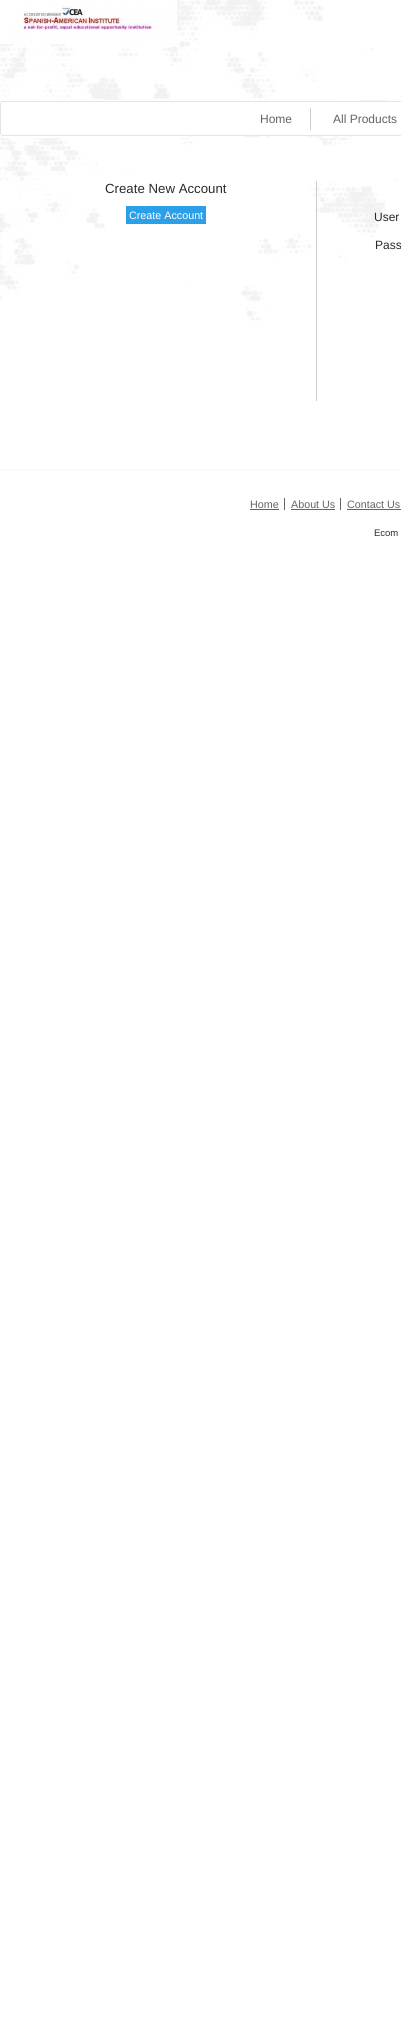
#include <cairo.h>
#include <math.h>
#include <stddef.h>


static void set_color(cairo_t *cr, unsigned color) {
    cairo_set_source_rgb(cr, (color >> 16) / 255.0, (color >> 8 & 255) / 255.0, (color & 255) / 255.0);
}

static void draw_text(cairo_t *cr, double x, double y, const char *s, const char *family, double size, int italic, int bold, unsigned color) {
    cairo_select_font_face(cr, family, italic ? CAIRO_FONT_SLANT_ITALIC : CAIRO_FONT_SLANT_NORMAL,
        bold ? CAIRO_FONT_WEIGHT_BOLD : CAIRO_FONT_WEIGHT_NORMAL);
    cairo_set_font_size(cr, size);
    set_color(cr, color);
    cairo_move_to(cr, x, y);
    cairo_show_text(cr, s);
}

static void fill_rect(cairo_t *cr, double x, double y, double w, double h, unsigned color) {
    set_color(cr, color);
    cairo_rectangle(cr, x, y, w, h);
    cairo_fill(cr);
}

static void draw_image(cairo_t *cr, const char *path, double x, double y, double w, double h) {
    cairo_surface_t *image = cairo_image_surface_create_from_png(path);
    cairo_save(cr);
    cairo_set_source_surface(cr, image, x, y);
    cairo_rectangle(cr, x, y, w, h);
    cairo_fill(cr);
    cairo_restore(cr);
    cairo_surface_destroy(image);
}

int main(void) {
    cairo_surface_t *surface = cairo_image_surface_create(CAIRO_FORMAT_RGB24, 401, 2027);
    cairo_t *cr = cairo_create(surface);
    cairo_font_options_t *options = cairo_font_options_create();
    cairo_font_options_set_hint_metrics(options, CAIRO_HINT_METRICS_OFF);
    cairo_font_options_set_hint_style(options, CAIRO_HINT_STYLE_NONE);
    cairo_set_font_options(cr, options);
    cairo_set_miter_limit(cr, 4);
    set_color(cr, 0xFFFFFF);
    cairo_paint(cr);
    draw_image(cr, "assets/img1.png", 0, 0, 399, 321);
    draw_image(cr, "assets/img2.png", 0, 0, 177, 44);
    draw_image(cr, "assets/img3.png", 0, 100, 401, 38);
    fill_rect(cr, 310, 108, 1, 22, 0xCCCCCC);
    draw_text(cr, 260, 123, "Home", "Liberation Sans", 12, 0, 0, 0x646464);
    draw_text(cr, 333, 123, "All Products", "Liberation Sans", 12, 0, 0, 0x646464);
    fill_rect(cr, 316, 181, 1, 220, 0xCCCCCC);
    draw_text(cr, 105, 193, "Create New Account", "Liberation Sans", 13.25, 0, 0, 0x2B2A2A);
    fill_rect(cr, 126, 206, 80, 18, 0x2BA0E8);
    draw_text(cr, 129, 219, "Create Account", "Liberation Sans", 10.75, 0, 0, 0xFFFFFF);
    draw_text(cr, 374, 221, "User", "Liberation Sans", 12, 0, 0, 0x2B2A2A);
    draw_text(cr, 375, 249, "Pass", "Liberation Sans", 12, 0, 0, 0x2B2A2A);
    fill_rect(cr, 0, 469, 401, 1, 0xF7F7F7);
    draw_text(cr, 250, 508, "Home", "Liberation Sans", 10.75, 0, 0, 0x646464);
    fill_rect(cr, 250, 509, 29, 1, 0x646464);
    draw_text(cr, 291, 508, "About Us", "Liberation Sans", 10.75, 0, 0, 0x646464);
    fill_rect(cr, 284, 498, 1, 12, 0x646464);
    fill_rect(cr, 291, 509, 44, 1, 0x646464);
    draw_text(cr, 347, 508, "Contact Us", "Liberation Sans", 10.75, 0, 0, 0x646464);
    fill_rect(cr, 340, 498, 1, 12, 0x646464);
    fill_rect(cr, 347, 509, 54, 1, 0x646464);
    draw_text(cr, 374, 536, "Ecom", "Liberation Sans", 9.5, 0, 0, 0x2B2A2A);
    cairo_surface_write_to_png(surface, "output.png");
    cairo_font_options_destroy(options);
    cairo_destroy(cr);
    cairo_surface_destroy(surface);
    return 0;
}
